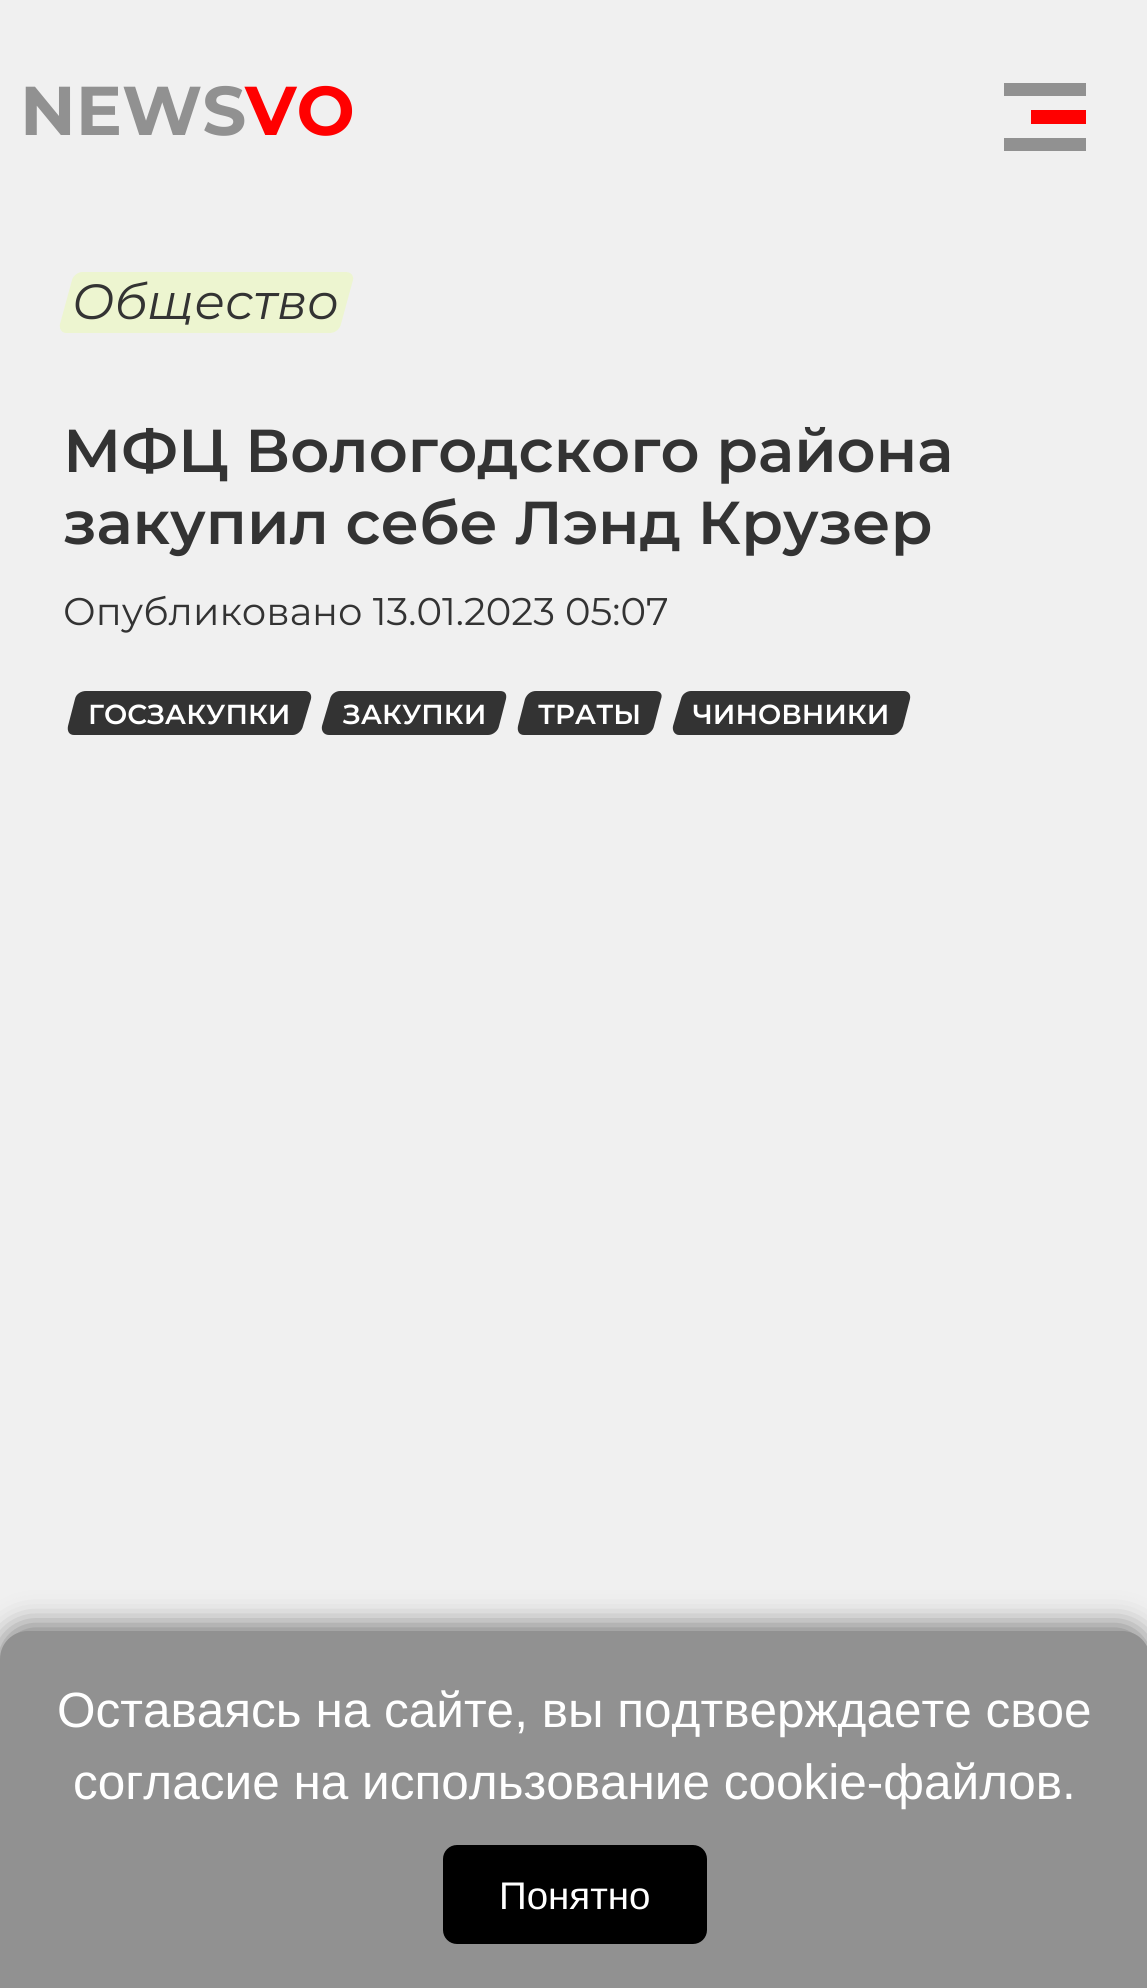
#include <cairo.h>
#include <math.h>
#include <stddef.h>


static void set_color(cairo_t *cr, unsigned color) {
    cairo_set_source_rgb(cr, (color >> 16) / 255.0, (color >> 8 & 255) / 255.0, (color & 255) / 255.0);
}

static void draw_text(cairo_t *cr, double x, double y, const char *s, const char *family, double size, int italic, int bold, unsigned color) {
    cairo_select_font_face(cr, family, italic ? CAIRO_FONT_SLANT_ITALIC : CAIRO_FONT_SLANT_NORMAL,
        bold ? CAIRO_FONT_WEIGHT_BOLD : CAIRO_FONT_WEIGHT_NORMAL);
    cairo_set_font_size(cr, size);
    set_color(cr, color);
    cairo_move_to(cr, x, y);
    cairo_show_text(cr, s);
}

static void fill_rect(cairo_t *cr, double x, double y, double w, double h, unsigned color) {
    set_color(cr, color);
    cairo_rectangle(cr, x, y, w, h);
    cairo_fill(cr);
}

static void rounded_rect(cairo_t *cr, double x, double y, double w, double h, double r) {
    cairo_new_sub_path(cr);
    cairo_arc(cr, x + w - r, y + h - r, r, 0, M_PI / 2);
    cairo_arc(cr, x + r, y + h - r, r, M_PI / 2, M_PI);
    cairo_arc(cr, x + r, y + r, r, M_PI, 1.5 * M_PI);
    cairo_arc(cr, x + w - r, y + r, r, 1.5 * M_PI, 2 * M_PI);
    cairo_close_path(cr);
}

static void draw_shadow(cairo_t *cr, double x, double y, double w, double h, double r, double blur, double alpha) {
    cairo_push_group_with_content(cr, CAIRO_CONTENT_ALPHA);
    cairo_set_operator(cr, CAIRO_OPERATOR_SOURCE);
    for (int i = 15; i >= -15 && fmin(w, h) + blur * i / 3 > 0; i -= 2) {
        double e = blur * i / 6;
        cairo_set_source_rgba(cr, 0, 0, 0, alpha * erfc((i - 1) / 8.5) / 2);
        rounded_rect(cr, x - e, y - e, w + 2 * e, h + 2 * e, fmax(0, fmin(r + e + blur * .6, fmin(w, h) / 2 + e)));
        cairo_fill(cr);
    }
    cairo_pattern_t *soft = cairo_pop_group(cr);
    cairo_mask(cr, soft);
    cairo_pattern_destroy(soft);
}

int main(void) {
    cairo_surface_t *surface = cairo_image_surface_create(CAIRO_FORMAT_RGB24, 1147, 1988);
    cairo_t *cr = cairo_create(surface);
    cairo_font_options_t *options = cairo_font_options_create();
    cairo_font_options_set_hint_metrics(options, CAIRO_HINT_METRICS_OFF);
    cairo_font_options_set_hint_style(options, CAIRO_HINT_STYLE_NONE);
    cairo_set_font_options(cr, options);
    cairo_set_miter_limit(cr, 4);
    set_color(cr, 0xF0F0F0);
    cairo_paint(cr);
    draw_text(cr, 20, 135, "NEWS", "Montserrat", 69, 0, 1, 0x919191);
    draw_text(cr, 245, 135, "VO", "Montserrat", 69, 0, 1, 0xFF0000);
    fill_rect(cr, 1004, 83, 82, 13, 0x919191);
    fill_rect(cr, 1031, 110, 55, 14, 0xFF0000);
    fill_rect(cr, 1004, 138, 82, 13, 0x919191);
    set_color(cr, 0xEDF5D0);
    cairo_new_path(cr);
    cairo_move_to(cr, 82, 272);
    cairo_line_to(cr, 346, 272);
    cairo_curve_to(cr, 351, 272, 354, 276, 353, 280);
    cairo_line_to(cr, 341, 324);
    cairo_curve_to(cr, 340, 329, 335, 333, 330, 333);
    cairo_line_to(cr, 66, 333);
    cairo_curve_to(cr, 62, 333, 59, 329, 60, 324);
    cairo_line_to(cr, 72, 280);
    cairo_curve_to(cr, 73, 276, 78, 272, 82, 272);
    cairo_close_path(cr);
    cairo_fill(cr);
    draw_text(cr, 72, 319, "Общество", "Montserrat", 49.5, 1, 0, 0x333333);
    draw_text(cr, 63, 472, "МФЦ Вологодского района", "Montserrat SemiBold", 60.5, 0, 0, 0x333333);
    draw_text(cr, 63, 544, "закупил себе Лэнд Крузер", "Montserrat SemiBold", 60.5, 0, 0, 0x333333);
    draw_text(cr, 63, 625, "Опубликовано 13.01.2023 05:07", "Montserrat", 38.5, 0, 0, 0x333333);
    cairo_new_path(cr);
    cairo_move_to(cr, 86, 691);
    cairo_line_to(cr, 305, 691);
    cairo_curve_to(cr, 309, 691, 312, 694, 311, 699);
    cairo_line_to(cr, 303, 726);
    cairo_curve_to(cr, 302, 731, 297, 735, 293, 735);
    cairo_line_to(cr, 74, 735);
    cairo_curve_to(cr, 69, 735, 67, 731, 68, 726);
    cairo_line_to(cr, 75, 699);
    cairo_curve_to(cr, 76, 694, 81, 691, 86, 691);
    cairo_close_path(cr);
    cairo_fill(cr);
    draw_text(cr, 88, 724, "ГОСЗАКУПКИ", "Montserrat SemiBold", 27.5, 0, 0, 0xFFFFFF);
    set_color(cr, 0x333333);
    cairo_new_path(cr);
    cairo_move_to(cr, 340, 691);
    cairo_line_to(cr, 500, 691);
    cairo_curve_to(cr, 505, 691, 507, 694, 506, 699);
    cairo_line_to(cr, 499, 726);
    cairo_curve_to(cr, 498, 731, 493, 735, 488, 735);
    cairo_line_to(cr, 329, 735);
    cairo_curve_to(cr, 324, 735, 321, 731, 322, 726);
    cairo_line_to(cr, 330, 699);
    cairo_curve_to(cr, 331, 694, 336, 691, 340, 691);
    cairo_close_path(cr);
    cairo_fill(cr);
    draw_text(cr, 343, 724, "ЗАКУПКИ", "Montserrat SemiBold", 27.5, 0, 0, 0xFFFFFF);
    set_color(cr, 0x333333);
    cairo_new_path(cr);
    cairo_move_to(cr, 536, 691);
    cairo_line_to(cr, 655, 691);
    cairo_curve_to(cr, 660, 691, 663, 694, 661, 699);
    cairo_line_to(cr, 654, 726);
    cairo_curve_to(cr, 653, 731, 648, 735, 644, 735);
    cairo_line_to(cr, 524, 735);
    cairo_curve_to(cr, 519, 735, 517, 731, 518, 726);
    cairo_line_to(cr, 525, 699);
    cairo_curve_to(cr, 527, 694, 531, 691, 536, 691);
    cairo_close_path(cr);
    cairo_fill(cr);
    draw_text(cr, 538, 724, "ТРАТЫ", "Montserrat SemiBold", 27.5, 0, 0, 0xFFFFFF);
    set_color(cr, 0x333333);
    cairo_new_path(cr);
    cairo_move_to(cr, 691, 691);
    cairo_line_to(cr, 904, 691);
    cairo_curve_to(cr, 908, 691, 911, 694, 910, 699);
    cairo_line_to(cr, 903, 726);
    cairo_curve_to(cr, 901, 731, 897, 735, 892, 735);
    cairo_line_to(cr, 679, 735);
    cairo_curve_to(cr, 675, 735, 672, 731, 673, 726);
    cairo_line_to(cr, 681, 699);
    cairo_curve_to(cr, 682, 694, 687, 691, 691, 691);
    cairo_close_path(cr);
    cairo_fill(cr);
    draw_text(cr, 693, 724, "ЧИНОВНИКИ", "Montserrat SemiBold", 27.5, 0, 0, 0xFFFFFF);
    set_color(cr, 0x000000);
    draw_shadow(cr, 0, 1625, 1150, 358, 28, 14, 0.5);
    set_color(cr, 0x919191);
    cairo_new_path(cr);
    cairo_move_to(cr, 28, 1631);
    cairo_line_to(cr, 1122, 1631);
    cairo_curve_to(cr, 1137.5, 1631, 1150, 1643.5, 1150, 1659);
    cairo_line_to(cr, 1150, 1988);
    cairo_line_to(cr, 0, 1988);
    cairo_line_to(cr, 0, 1659);
    cairo_curve_to(cr, 0, 1643.5, 12.5, 1631, 28, 1631);
    cairo_close_path(cr);
    cairo_fill(cr);
    draw_text(cr, 57, 1727, "Оставаясь на сайте, вы подтверждаете свое", "Liberation Sans", 49.5, 0, 0, 0xFFFFFF);
    draw_text(cr, 73, 1799, "согласие на использование cookie-файлов.", "Liberation Sans", 49.5, 0, 0, 0xFFFFFF);
    set_color(cr, 0x000000);
    rounded_rect(cr, 443, 1845, 264, 99, 14);
    cairo_fill(cr);
    draw_text(cr, 499, 1909, "Понятно", "Liberation Sans", 38.5, 0, 0, 0xFFFFFF);
    cairo_surface_write_to_png(surface, "output.png");
    cairo_font_options_destroy(options);
    cairo_destroy(cr);
    cairo_surface_destroy(surface);
    return 0;
}
